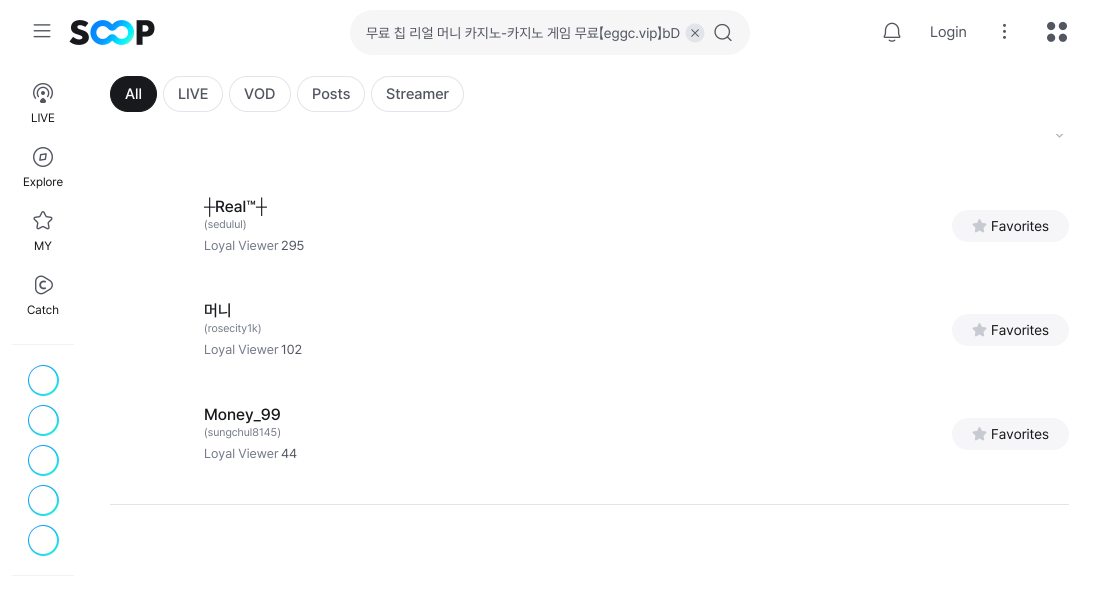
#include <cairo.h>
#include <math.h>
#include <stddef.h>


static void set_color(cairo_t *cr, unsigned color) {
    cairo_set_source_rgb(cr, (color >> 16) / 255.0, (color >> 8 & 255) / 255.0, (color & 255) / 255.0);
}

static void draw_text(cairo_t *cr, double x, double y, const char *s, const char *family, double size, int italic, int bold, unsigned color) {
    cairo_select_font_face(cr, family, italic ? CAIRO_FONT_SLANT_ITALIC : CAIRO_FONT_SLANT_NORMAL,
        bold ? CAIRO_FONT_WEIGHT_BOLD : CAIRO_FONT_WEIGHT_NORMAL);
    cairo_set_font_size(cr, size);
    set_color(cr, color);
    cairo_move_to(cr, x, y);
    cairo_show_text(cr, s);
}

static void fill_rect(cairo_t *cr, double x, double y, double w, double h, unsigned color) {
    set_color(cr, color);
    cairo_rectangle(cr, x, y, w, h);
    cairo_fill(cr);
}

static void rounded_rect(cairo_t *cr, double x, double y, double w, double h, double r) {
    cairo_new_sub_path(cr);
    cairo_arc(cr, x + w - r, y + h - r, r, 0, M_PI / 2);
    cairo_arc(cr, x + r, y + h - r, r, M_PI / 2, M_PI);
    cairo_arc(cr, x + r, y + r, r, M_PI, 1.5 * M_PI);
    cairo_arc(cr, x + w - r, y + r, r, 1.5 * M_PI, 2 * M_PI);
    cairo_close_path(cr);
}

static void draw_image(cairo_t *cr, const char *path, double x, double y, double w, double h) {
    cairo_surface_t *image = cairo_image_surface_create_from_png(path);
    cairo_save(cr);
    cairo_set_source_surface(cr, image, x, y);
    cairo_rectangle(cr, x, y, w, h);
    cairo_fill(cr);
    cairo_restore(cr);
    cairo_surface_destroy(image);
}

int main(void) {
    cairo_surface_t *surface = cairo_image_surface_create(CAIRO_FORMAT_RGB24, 1099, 592);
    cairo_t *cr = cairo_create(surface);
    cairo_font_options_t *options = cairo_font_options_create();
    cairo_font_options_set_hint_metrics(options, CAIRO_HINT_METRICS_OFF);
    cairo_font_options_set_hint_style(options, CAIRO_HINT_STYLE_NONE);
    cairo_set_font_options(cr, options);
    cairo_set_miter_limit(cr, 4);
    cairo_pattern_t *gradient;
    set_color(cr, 0xFFFFFF);
    cairo_paint(cr);
    draw_image(cr, "assets/img1.png", 33, 24, 18, 14);
    draw_image(cr, "assets/img2.png", 69, 20, 86, 25);
    set_color(cr, 0xF6F6F6);
    rounded_rect(cr, 350, 10, 400, 45, 22.5);
    cairo_fill(cr);
    draw_text(cr, 366, 38, "무료 칩 리얼 머니 카지노-카지노 게임 무료【eggc.vip】bD", "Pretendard", 14, 0, 0, 0x525661);
    draw_image(cr, "assets/img3.png", 685, 23, 20, 20);
    draw_image(cr, "assets/img4.png", 714, 23, 18, 19);
    draw_image(cr, "assets/img5.png", 883, 22, 18, 20);
    draw_text(cr, 930, 37, "Login", "Pretendard", 15, 0, 0, 0x525661);
    draw_image(cr, "assets/img6.png", 1003, 23, 3, 16);
    draw_image(cr, "assets/img7.png", 1047, 21, 20, 21);
    draw_image(cr, "assets/img8.png", 33, 83, 20, 20);
    draw_text(cr, 31, 122, "LIVE", "Pretendard", 12, 0, 0, 0x17191C);
    draw_image(cr, "assets/img9.png", 33, 147, 20, 20);
    draw_text(cr, 23, 186, "Explore", "Pretendard", 12, 0, 0, 0x17191C);
    draw_image(cr, "assets/img10.png", 33, 211, 20, 19);
    draw_text(cr, 34, 250, "MY", "Pretendard", 12, 0, 0, 0x17191C);
    draw_image(cr, "assets/img11.png", 35, 275, 18, 20);
    draw_text(cr, 27, 314, "Catch", "Pretendard", 12, 0, 0, 0x17191C);
    fill_rect(cr, 12, 344, 62, 1, 0xF1F2F3);
    gradient = cairo_pattern_create_linear(29, 363, 57, 397);
    cairo_pattern_add_color_stop_rgba(gradient, 0, 0.012, 0.529, 1, 1);
    cairo_pattern_add_color_stop_rgba(gradient, 1, 0.196, 0.965, 0.878, 1);
    cairo_set_source(cr, gradient);
    cairo_pattern_destroy(gradient);
    cairo_new_path(cr);
    cairo_arc(cr, 43.5, 380.5, 15.5, 0, 2 * M_PI);
    cairo_fill(cr);
    set_color(cr, 0xFFFFFF);
    cairo_arc(cr, 43, 380, 14, 0, 2 * M_PI);
    cairo_fill(cr);
    gradient = cairo_pattern_create_linear(29, 403, 57, 437);
    cairo_pattern_add_color_stop_rgba(gradient, 0, 0.012, 0.529, 1, 1);
    cairo_pattern_add_color_stop_rgba(gradient, 1, 0.196, 0.965, 0.878, 1);
    cairo_set_source(cr, gradient);
    cairo_pattern_destroy(gradient);
    cairo_arc(cr, 43.5, 420.5, 15.5, 0, 2 * M_PI);
    cairo_fill(cr);
    set_color(cr, 0xFFFFFF);
    cairo_arc(cr, 43, 420, 14, 0, 2 * M_PI);
    cairo_fill(cr);
    gradient = cairo_pattern_create_linear(29, 443, 57, 477);
    cairo_pattern_add_color_stop_rgba(gradient, 0, 0.012, 0.529, 1, 1);
    cairo_pattern_add_color_stop_rgba(gradient, 1, 0.196, 0.965, 0.878, 1);
    cairo_set_source(cr, gradient);
    cairo_pattern_destroy(gradient);
    cairo_arc(cr, 43.5, 460.5, 15.5, 0, 2 * M_PI);
    cairo_fill(cr);
    set_color(cr, 0xFFFFFF);
    cairo_arc(cr, 43, 460, 14, 0, 2 * M_PI);
    cairo_fill(cr);
    gradient = cairo_pattern_create_linear(29, 483, 57, 517);
    cairo_pattern_add_color_stop_rgba(gradient, 0, 0.012, 0.529, 1, 1);
    cairo_pattern_add_color_stop_rgba(gradient, 1, 0.196, 0.965, 0.878, 1);
    cairo_set_source(cr, gradient);
    cairo_pattern_destroy(gradient);
    cairo_arc(cr, 43.5, 500.5, 15.5, 0, 2 * M_PI);
    cairo_fill(cr);
    set_color(cr, 0xFFFFFF);
    cairo_arc(cr, 43, 500, 14, 0, 2 * M_PI);
    cairo_fill(cr);
    gradient = cairo_pattern_create_linear(29, 523, 57, 557);
    cairo_pattern_add_color_stop_rgba(gradient, 0, 0.012, 0.529, 1, 1);
    cairo_pattern_add_color_stop_rgba(gradient, 1, 0.196, 0.965, 0.878, 1);
    cairo_set_source(cr, gradient);
    cairo_pattern_destroy(gradient);
    cairo_arc(cr, 43.5, 540.5, 15.5, 0, 2 * M_PI);
    cairo_fill(cr);
    set_color(cr, 0xFFFFFF);
    cairo_arc(cr, 43, 540, 14, 0, 2 * M_PI);
    cairo_fill(cr);
    fill_rect(cr, 12, 575, 62, 1, 0xF1F2F3);
    cairo_new_path(cr);
    cairo_move_to(cr, 1064, 132.5);
    cairo_line_to(cr, 1059.5, 137);
    cairo_line_to(cr, 1055, 132.5);
    set_color(cr, 0xACB0B9);
    cairo_set_line_width(cr, 1.2);
    cairo_set_line_cap(cr, CAIRO_LINE_CAP_ROUND);
    cairo_set_line_join(cr, CAIRO_LINE_JOIN_ROUND);
    cairo_stroke(cr);
    fill_rect(cr, 1054, 132, 11, 2, 0xFFFFFF);
    set_color(cr, 0x17191C);
    rounded_rect(cr, 110.5, 76.5, 46, 35, 17.5);
    cairo_fill_preserve(cr);
    cairo_set_line_width(cr, 1);
    cairo_set_line_cap(cr, CAIRO_LINE_CAP_BUTT);
    cairo_set_line_join(cr, CAIRO_LINE_JOIN_MITER);
    cairo_stroke(cr);
    draw_text(cr, 125, 99, "All", "Pretendard Medium", 15, 0, 0, 0xFCFCFD);
    rounded_rect(cr, 163.5, 76.5, 59, 35, 17.5);
    set_color(cr, 0xE2E4E9);
    cairo_stroke(cr);
    draw_text(cr, 178, 99, "LIVE", "Pretendard Medium", 15, 0, 0, 0x525661);
    rounded_rect(cr, 229.5, 76.5, 61, 35, 17.5);
    set_color(cr, 0xE2E4E9);
    cairo_stroke(cr);
    draw_text(cr, 244, 99, "VOD", "Pretendard Medium", 15, 0, 0, 0x525661);
    rounded_rect(cr, 297.5, 76.5, 67, 35, 17.5);
    set_color(cr, 0xE2E4E9);
    cairo_stroke(cr);
    draw_text(cr, 312, 99, "Posts", "Pretendard Medium", 15, 0, 0, 0x525661);
    rounded_rect(cr, 371.5, 76.5, 92, 35, 17.5);
    set_color(cr, 0xE2E4E9);
    cairo_stroke(cr);
    draw_text(cr, 386, 99, "Streamer", "Pretendard Medium", 15, 0, 0, 0x525661);
    draw_text(cr, 204, 212, "┼", "Liberation Sans", 16, 0, 0, 0x17191C);
    draw_text(cr, 215, 212, "Real™", "Pretendard Medium", 16, 0, 0, 0x17191C);
    cairo_save(cr);
    cairo_rectangle(cr, 204, 197, 63, 19);
    cairo_clip(cr);
    draw_text(cr, 256, 212, "┼", "Liberation Sans", 16, 0, 0, 0x17191C);
    cairo_restore(cr);
    draw_text(cr, 204, 228, "(sedulul)", "Pretendard", 11, 0, 0, 0x757B8A);
    draw_text(cr, 204, 250, "Loyal Viewer", "Pretendard", 13, 0, 0, 0x757B8A);
    draw_text(cr, 281, 250, "295", "Pretendard", 13, 0, 0, 0x525661);
    set_color(cr, 0xF6F6F9);
    rounded_rect(cr, 952, 210, 117, 32, 16);
    cairo_fill(cr);
    draw_image(cr, "assets/img12.png", 972, 219, 15, 14);
    draw_text(cr, 991, 231, "Favorites", "Pretendard", 14, 0, 0, 0x17191C);
    draw_text(cr, 204, 316, "머니", "Pretendard Medium", 16, 0, 0, 0x17191C);
    draw_text(cr, 204, 332, "(rosecity1k)", "Pretendard", 11, 0, 0, 0x757B8A);
    draw_text(cr, 204, 354, "Loyal Viewer", "Pretendard", 13, 0, 0, 0x757B8A);
    draw_text(cr, 281, 354, "102", "Pretendard", 13, 0, 0, 0x525661);
    set_color(cr, 0xF6F6F9);
    rounded_rect(cr, 952, 314, 117, 32, 16);
    cairo_fill(cr);
    draw_image(cr, "assets/img12.png", 972, 323, 15, 14);
    draw_text(cr, 991, 335, "Favorites", "Pretendard", 14, 0, 0, 0x17191C);
    draw_text(cr, 204, 420, "Money_99", "Pretendard Medium", 16, 0, 0, 0x17191C);
    draw_text(cr, 204, 436, "(sungchul8145)", "Pretendard", 11, 0, 0, 0x757B8A);
    draw_text(cr, 204, 458, "Loyal Viewer", "Pretendard", 13, 0, 0, 0x757B8A);
    draw_text(cr, 281, 458, "44", "Pretendard", 13, 0, 0, 0x525661);
    set_color(cr, 0xF6F6F9);
    rounded_rect(cr, 952, 418, 117, 32, 16);
    cairo_fill(cr);
    draw_image(cr, "assets/img12.png", 972, 427, 15, 14);
    draw_text(cr, 991, 439, "Favorites", "Pretendard", 14, 0, 0, 0x17191C);
    fill_rect(cr, 110, 504, 959, 1, 0xE2E4E9);
    cairo_surface_write_to_png(surface, "output.png");
    cairo_font_options_destroy(options);
    cairo_destroy(cr);
    cairo_surface_destroy(surface);
    return 0;
}
